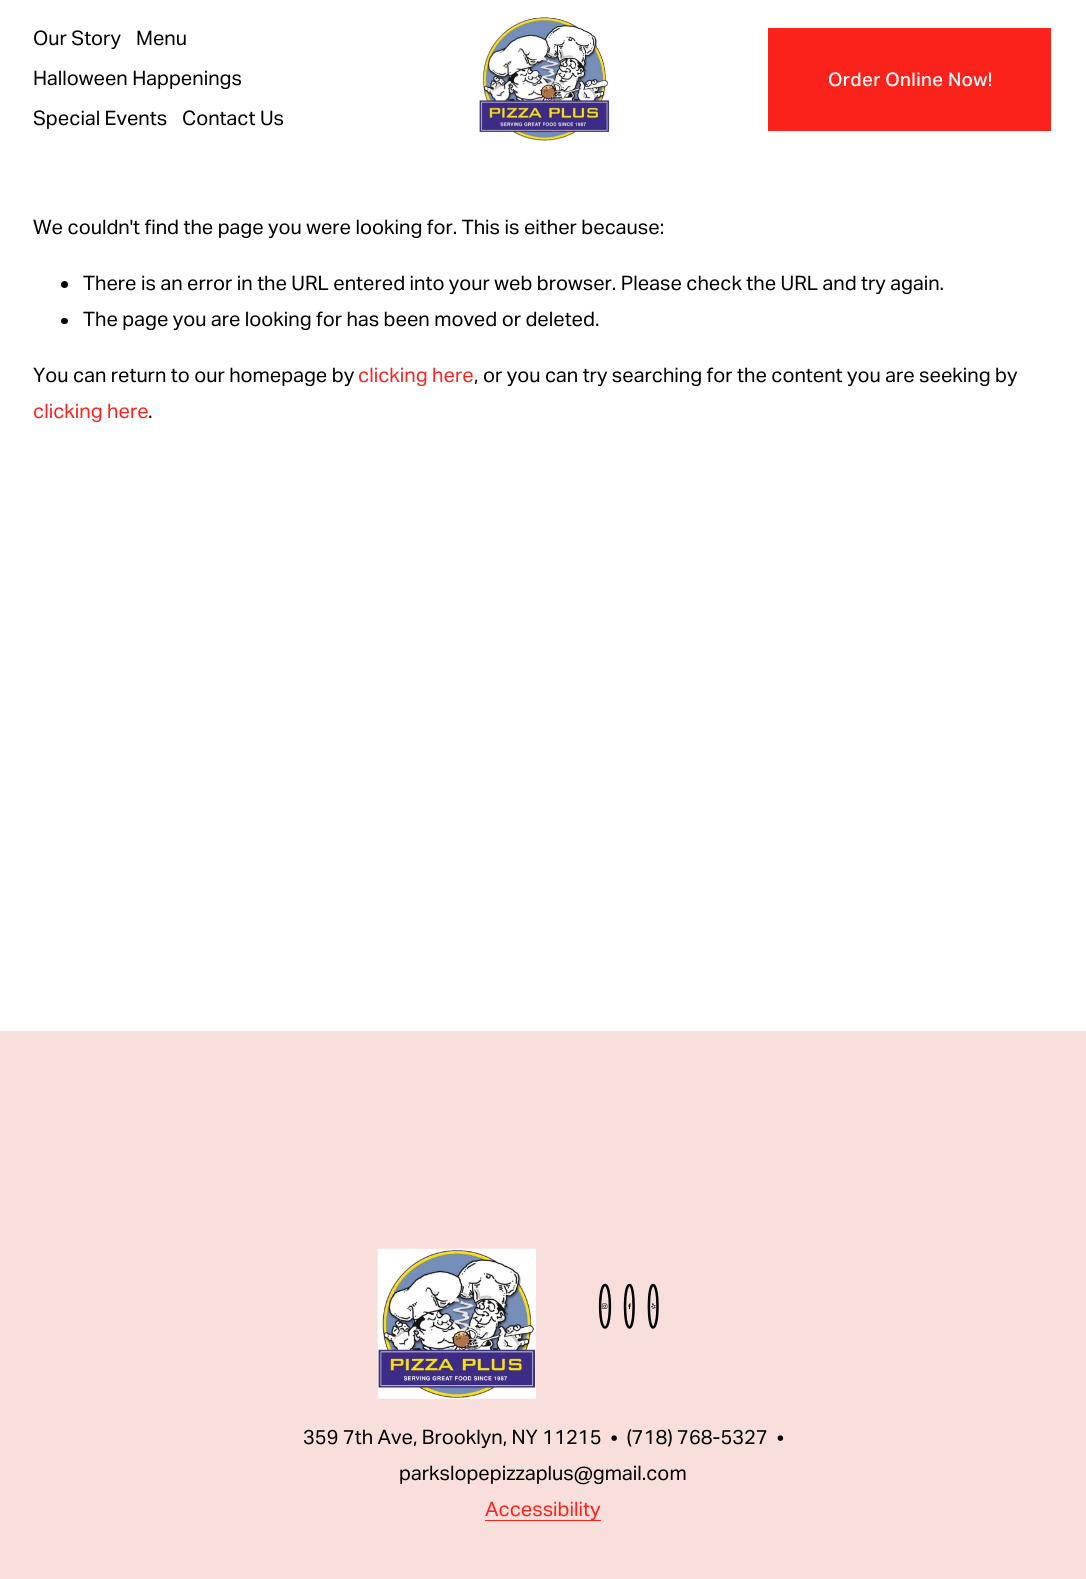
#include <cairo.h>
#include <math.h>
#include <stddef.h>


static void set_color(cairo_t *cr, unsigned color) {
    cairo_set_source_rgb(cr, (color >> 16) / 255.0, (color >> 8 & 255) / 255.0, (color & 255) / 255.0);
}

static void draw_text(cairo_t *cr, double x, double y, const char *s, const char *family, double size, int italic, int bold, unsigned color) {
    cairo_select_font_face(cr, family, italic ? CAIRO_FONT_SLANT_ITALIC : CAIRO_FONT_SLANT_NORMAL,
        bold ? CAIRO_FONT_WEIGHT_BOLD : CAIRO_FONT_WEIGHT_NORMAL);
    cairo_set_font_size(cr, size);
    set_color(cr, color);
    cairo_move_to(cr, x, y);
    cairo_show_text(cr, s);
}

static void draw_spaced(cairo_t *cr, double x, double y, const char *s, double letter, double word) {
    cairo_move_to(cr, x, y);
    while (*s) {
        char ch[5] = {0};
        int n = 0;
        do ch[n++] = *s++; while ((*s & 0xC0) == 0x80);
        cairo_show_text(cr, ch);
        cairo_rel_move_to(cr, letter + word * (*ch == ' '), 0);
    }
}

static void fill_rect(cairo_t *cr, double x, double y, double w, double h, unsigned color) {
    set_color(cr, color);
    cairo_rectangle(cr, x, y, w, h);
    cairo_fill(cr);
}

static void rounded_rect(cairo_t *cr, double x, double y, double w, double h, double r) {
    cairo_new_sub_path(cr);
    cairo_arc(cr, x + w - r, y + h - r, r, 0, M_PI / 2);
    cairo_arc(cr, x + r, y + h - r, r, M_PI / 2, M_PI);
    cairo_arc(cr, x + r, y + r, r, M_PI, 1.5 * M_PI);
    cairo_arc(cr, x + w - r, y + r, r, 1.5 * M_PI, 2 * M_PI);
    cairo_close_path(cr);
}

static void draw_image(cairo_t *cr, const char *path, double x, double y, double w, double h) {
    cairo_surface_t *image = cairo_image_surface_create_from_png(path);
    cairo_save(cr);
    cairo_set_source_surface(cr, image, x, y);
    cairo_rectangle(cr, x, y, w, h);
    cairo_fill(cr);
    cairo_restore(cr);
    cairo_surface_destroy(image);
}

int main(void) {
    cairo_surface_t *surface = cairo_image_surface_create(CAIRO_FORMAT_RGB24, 1086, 1579);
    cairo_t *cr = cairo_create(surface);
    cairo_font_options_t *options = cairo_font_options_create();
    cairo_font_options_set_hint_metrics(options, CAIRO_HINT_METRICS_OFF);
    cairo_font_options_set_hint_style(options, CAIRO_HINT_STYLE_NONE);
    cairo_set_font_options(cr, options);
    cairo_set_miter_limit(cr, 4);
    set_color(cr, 0xFFFFFF);
    cairo_paint(cr);
    draw_text(cr, 33, 45, "Our Story", "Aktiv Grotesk", 20, 0, 0, 0x000000);
    draw_text(cr, 136, 45, "Menu", "Aktiv Grotesk", 20, 0, 0, 0x000000);
    draw_text(cr, 33, 85, "Halloween Happenings", "Aktiv Grotesk", 20, 0, 0, 0x000000);
    draw_text(cr, 33, 125, "Special Events", "Aktiv Grotesk", 20, 0, 0, 0x000000);
    draw_text(cr, 182, 125, "Contact Us", "Aktiv Grotesk", 20, 0, 0, 0x000000);
    draw_image(cr, "assets/img1.png", 479, 16, 131, 125);
    fill_rect(cr, 768, 28, 283, 103, 0xFC221C);
    cairo_select_font_face(cr, "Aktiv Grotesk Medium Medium", CAIRO_FONT_SLANT_NORMAL, CAIRO_FONT_WEIGHT_NORMAL);
    cairo_set_font_size(cr, 18.75);
    set_color(cr, 0xFFFFFF);
    draw_spaced(cr, 828, 86, "Order Online Now!", 0.4, 0);
    draw_text(cr, 33, 234, "We couldn't find the page you were looking for. This is either because:", "Aktiv Grotesk", 20, 0, 0, 0x000000);
    cairo_new_path(cr);
    cairo_arc(cr, 64.5, 284.5, 3.5, 0, 2 * M_PI);
    cairo_fill(cr);
    draw_text(cr, 83, 290, "There is an error in the URL entered into your web browser. Please check the URL and try again.", "Aktiv Grotesk", 20, 0, 0, 0x000000);
    rounded_rect(cr, 61, 318, 7, 6, 3);
    cairo_fill(cr);
    draw_text(cr, 83, 326, "The page you are looking for has been moved or deleted.", "Aktiv Grotesk", 20, 0, 0, 0x000000);
    draw_text(cr, 33, 382, "You can return to our homepage by", "Aktiv Grotesk", 20, 0, 0, 0x000000);
    draw_text(cr, 358, 382, "clicking here", "Aktiv Grotesk", 20, 0, 0, 0xFC221C);
    draw_text(cr, 474, 382, ", or you can try searching for the content you are seeking by", "Aktiv Grotesk", 20, 0, 0, 0x000000);
    draw_text(cr, 33, 418, "clicking here", "Aktiv Grotesk", 20, 0, 0, 0xFC221C);
    draw_text(cr, 148, 418, ".", "Aktiv Grotesk", 20, 0, 0, 0x000000);
    fill_rect(cr, 0, 1031, 1086, 548, 0xF8DFDB);
    draw_image(cr, "assets/img2.png", 377, 1248, 159, 151);
    cairo_new_path(cr);
    cairo_move_to(cr, 605, 1285);
    cairo_curve_to(cr, 611.5, 1285, 611.5, 1327.5, 605, 1327.5);
    cairo_curve_to(cr, 598.5, 1327.5, 598.5, 1285, 605, 1285);
    cairo_close_path(cr);
    set_color(cr, 0x000000);
    cairo_set_line_width(cr, 2.5);
    cairo_stroke(cr);
    draw_image(cr, "assets/img3.png", 601, 1303, 7, 6);
    cairo_new_path(cr);
    cairo_move_to(cr, 629.5, 1285);
    cairo_curve_to(cr, 635, 1285, 635, 1327.5, 629.5, 1327.5);
    cairo_curve_to(cr, 623.5, 1327.5, 623.5, 1285, 629.5, 1285);
    cairo_close_path(cr);
    cairo_stroke(cr);
    draw_image(cr, "assets/img4.png", 628, 1303, 3, 6);
    cairo_new_path(cr);
    cairo_move_to(cr, 653, 1285);
    cairo_curve_to(cr, 659, 1285, 659, 1327.5, 653, 1327.5);
    cairo_curve_to(cr, 647.5, 1327.5, 647.5, 1285, 653, 1285);
    cairo_close_path(cr);
    cairo_stroke(cr);
    draw_image(cr, "assets/img5.png", 651, 1303, 5, 6);
    draw_text(cr, 303, 1444, "359 7th Ave, Brooklyn, NY 11215  •  (718) 768-5327  •", "Aktiv Grotesk", 20, 0, 0, 0x000000);
    draw_text(cr, 399, 1480, "parkslopepizzaplus@gmail.com", "Aktiv Grotesk", 20, 0, 0, 0x000000);
    fill_rect(cr, 485, 1520, 116, 1, 0xFC221C);
    draw_text(cr, 485, 1516, "Accessibility", "Aktiv Grotesk", 20, 0, 0, 0xFC221C);
    cairo_surface_write_to_png(surface, "output.png");
    cairo_font_options_destroy(options);
    cairo_destroy(cr);
    cairo_surface_destroy(surface);
    return 0;
}
